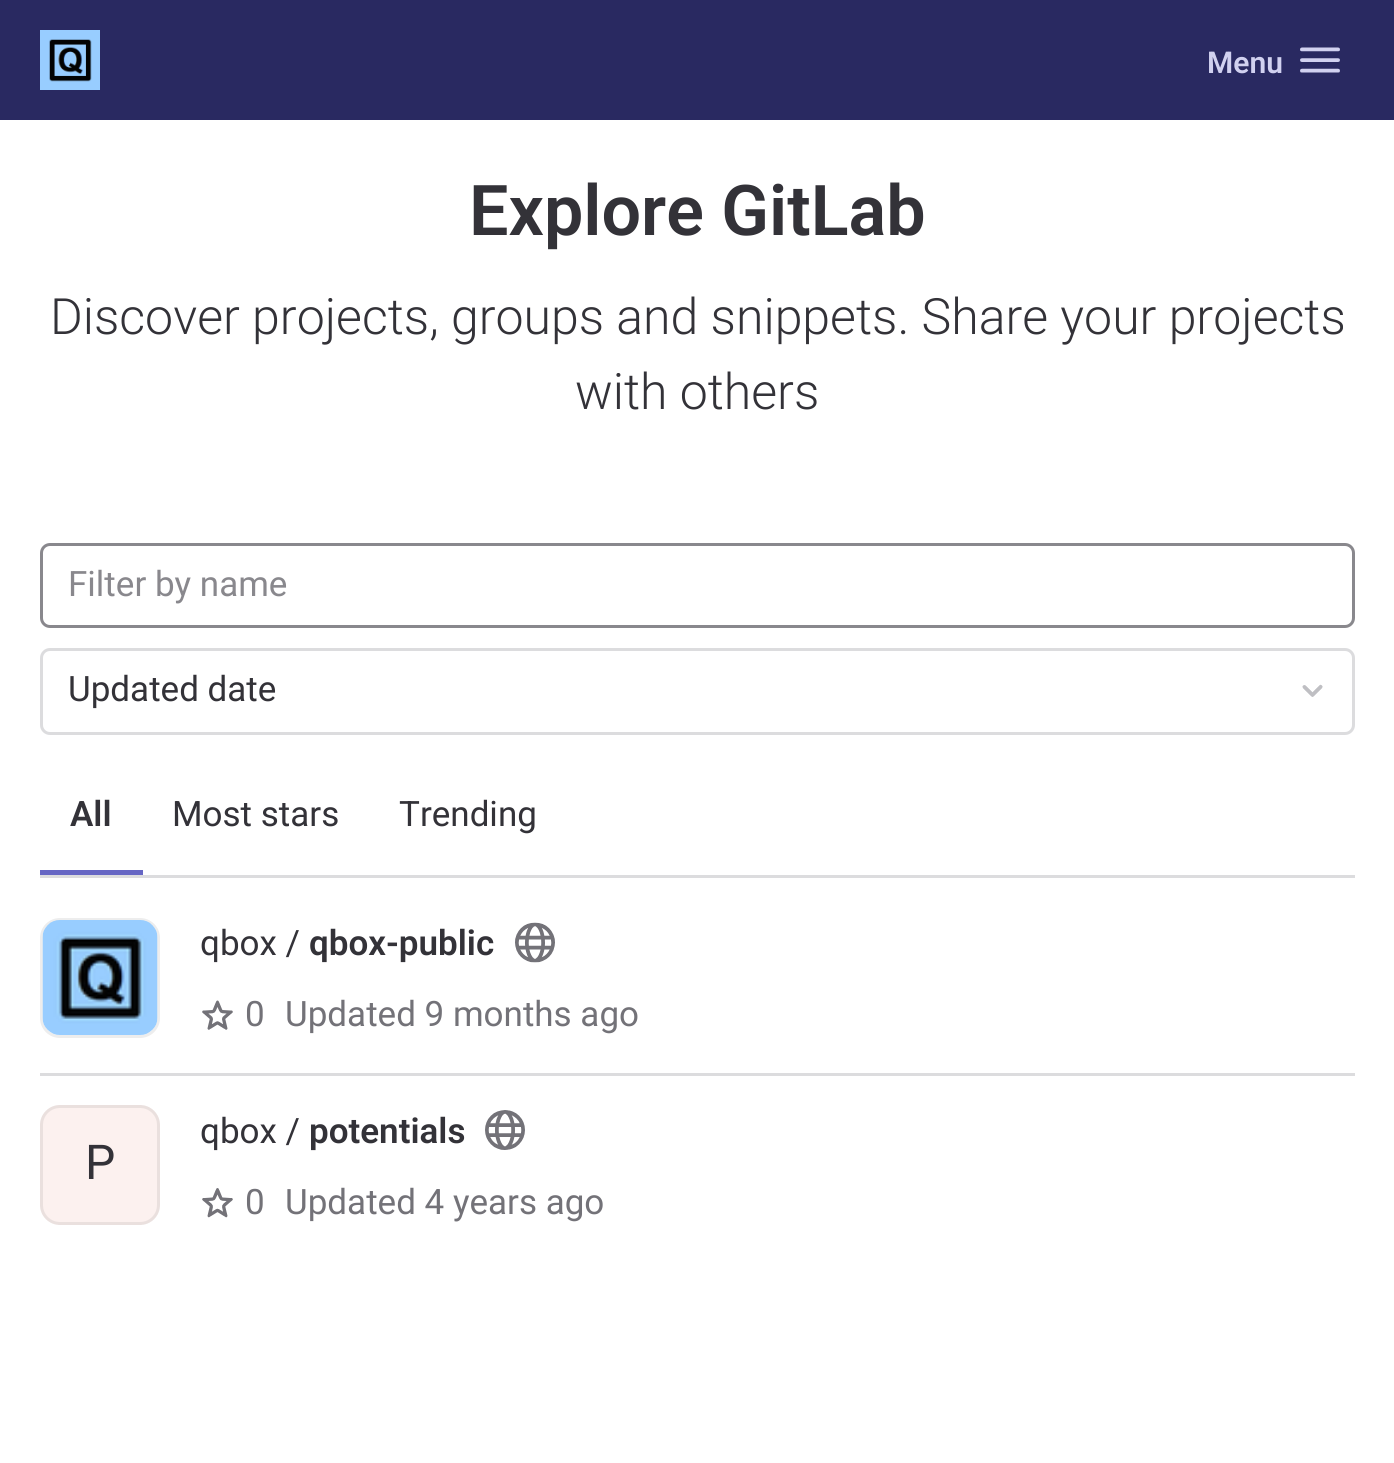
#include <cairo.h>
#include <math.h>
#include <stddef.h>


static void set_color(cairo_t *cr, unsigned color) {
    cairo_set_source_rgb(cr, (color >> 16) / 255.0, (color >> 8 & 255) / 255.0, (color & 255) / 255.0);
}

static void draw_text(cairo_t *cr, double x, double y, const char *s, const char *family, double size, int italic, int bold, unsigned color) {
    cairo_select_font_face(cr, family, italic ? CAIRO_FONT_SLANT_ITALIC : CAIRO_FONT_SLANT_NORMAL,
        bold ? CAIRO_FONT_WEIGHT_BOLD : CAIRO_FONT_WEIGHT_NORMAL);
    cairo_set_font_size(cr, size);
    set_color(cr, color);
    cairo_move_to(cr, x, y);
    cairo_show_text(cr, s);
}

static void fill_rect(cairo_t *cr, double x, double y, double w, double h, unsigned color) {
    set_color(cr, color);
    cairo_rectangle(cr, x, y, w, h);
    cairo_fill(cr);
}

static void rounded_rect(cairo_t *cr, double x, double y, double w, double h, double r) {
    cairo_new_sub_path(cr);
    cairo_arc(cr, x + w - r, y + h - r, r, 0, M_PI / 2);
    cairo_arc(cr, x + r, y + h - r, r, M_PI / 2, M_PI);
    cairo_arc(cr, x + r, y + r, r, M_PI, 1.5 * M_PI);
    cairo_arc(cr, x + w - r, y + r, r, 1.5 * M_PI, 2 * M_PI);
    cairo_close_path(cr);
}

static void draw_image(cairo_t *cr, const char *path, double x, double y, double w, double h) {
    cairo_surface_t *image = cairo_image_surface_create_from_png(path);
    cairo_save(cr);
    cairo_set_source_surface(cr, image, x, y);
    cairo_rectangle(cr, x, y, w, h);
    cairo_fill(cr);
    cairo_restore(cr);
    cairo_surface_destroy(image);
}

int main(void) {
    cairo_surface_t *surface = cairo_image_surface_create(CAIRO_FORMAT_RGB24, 1394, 1463);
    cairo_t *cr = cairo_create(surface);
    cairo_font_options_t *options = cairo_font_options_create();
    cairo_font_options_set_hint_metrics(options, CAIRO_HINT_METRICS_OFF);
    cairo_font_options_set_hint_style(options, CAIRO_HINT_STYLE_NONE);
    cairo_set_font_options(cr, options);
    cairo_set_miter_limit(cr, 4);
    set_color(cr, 0xFFFFFF);
    cairo_paint(cr);
    fill_rect(cr, 0, 0, 1394, 120, 0x292961);
    draw_image(cr, "assets/img1.png", 40, 30, 60, 60);
    draw_text(cr, 1207, 73, "Menu", "Roboto SemiBold", 30, 0, 0, 0xD1D1F0);
    draw_image(cr, "assets/img2.png", 1300, 47, 40, 26);
    draw_text(cr, 469, 235, "Explore GitLab", "Roboto SemiBold", 70, 0, 0, 0x333238);
    draw_text(cr, 50, 334, "Discover projects, groups and snippets. Share your projects", "Roboto Light", 50, 0, 0, 0x333238);
    draw_text(cr, 575, 409, "with others", "Roboto Light", 50, 0, 0, 0x333238);
    fill_rect(cr, 40, 875, 1315, 3, 0xDCDCDE);
    rounded_rect(cr, 41.5, 544.5, 1312, 82, 8.5);
    set_color(cr, 0x89888D);
    cairo_set_line_width(cr, 3);
    cairo_stroke(cr);
    draw_text(cr, 68, 596, "Filter by name", "Roboto", 35, 0, 0, 0x89888D);
    rounded_rect(cr, 41.5, 649.5, 1312, 84, 8.5);
    set_color(cr, 0xDCDCDE);
    cairo_stroke(cr);
    draw_text(cr, 68, 701, "Updated date", "Roboto", 35, 0, 0, 0x333238);
    draw_image(cr, "assets/img3.png", 1302, 684, 21, 13);
    fill_rect(cr, 40, 870, 103, 5, 0x6666C4);
    draw_text(cr, 70, 826, "All", "Roboto SemiBold", 35, 0, 0, 0x333238);
    draw_text(cr, 172, 826, "Most stars", "Roboto", 35, 0, 0, 0x333238);
    draw_text(cr, 399, 826, "Trending", "Roboto", 35, 0, 0, 0x333238);
    fill_rect(cr, 40, 1073, 1315, 3, 0xDCDCDE);
    rounded_rect(cr, 41.5, 919.5, 117, 117, 18.5);
    set_color(cr, 0xEDEDED);
    cairo_stroke(cr);
    draw_image(cr, "assets/img4.png", 42, 920, 116, 115);
    draw_text(cr, 200, 955, "qbox /", "Roboto", 35, 0, 0, 0x333238);
    draw_text(cr, 309, 955, "qbox-public", "Roboto SemiBold", 35, 0, 0, 0x333238);
    draw_image(cr, "assets/img5.png", 515, 922, 40, 41);
    draw_image(cr, "assets/img6.png", 202, 1000, 31, 30);
    draw_text(cr, 245, 1026, "0", "Roboto", 35, 0, 0, 0x737278);
    draw_text(cr, 285, 1026, "Updated 9 months ago", "Roboto", 35, 0, 0, 0x737278);
    set_color(cr, 0xFCF1EF);
    rounded_rect(cr, 40, 1105, 120, 120, 20);
    cairo_fill(cr);
    rounded_rect(cr, 41.5, 1106.5, 117, 117, 18.5);
    cairo_set_source_rgba(cr, 0.122, 0.118, 0.141, 0.08);
    cairo_stroke(cr);
    draw_text(cr, 85, 1179, "P", "Roboto", 48, 0, 0, 0x333238);
    draw_text(cr, 200, 1143, "qbox /", "Roboto", 35, 0, 0, 0x333238);
    draw_text(cr, 309, 1143, "potentials", "Roboto SemiBold", 35, 0, 0, 0x333238);
    draw_image(cr, "assets/img7.png", 485, 1110, 40, 40);
    draw_image(cr, "assets/img8.png", 202, 1188, 31, 30);
    draw_text(cr, 245, 1214, "0", "Roboto", 35, 0, 0, 0x737278);
    draw_text(cr, 285, 1214, "Updated 4 years ago", "Roboto", 35, 0, 0, 0x737278);
    cairo_surface_write_to_png(surface, "output.png");
    cairo_font_options_destroy(options);
    cairo_destroy(cr);
    cairo_surface_destroy(surface);
    return 0;
}
